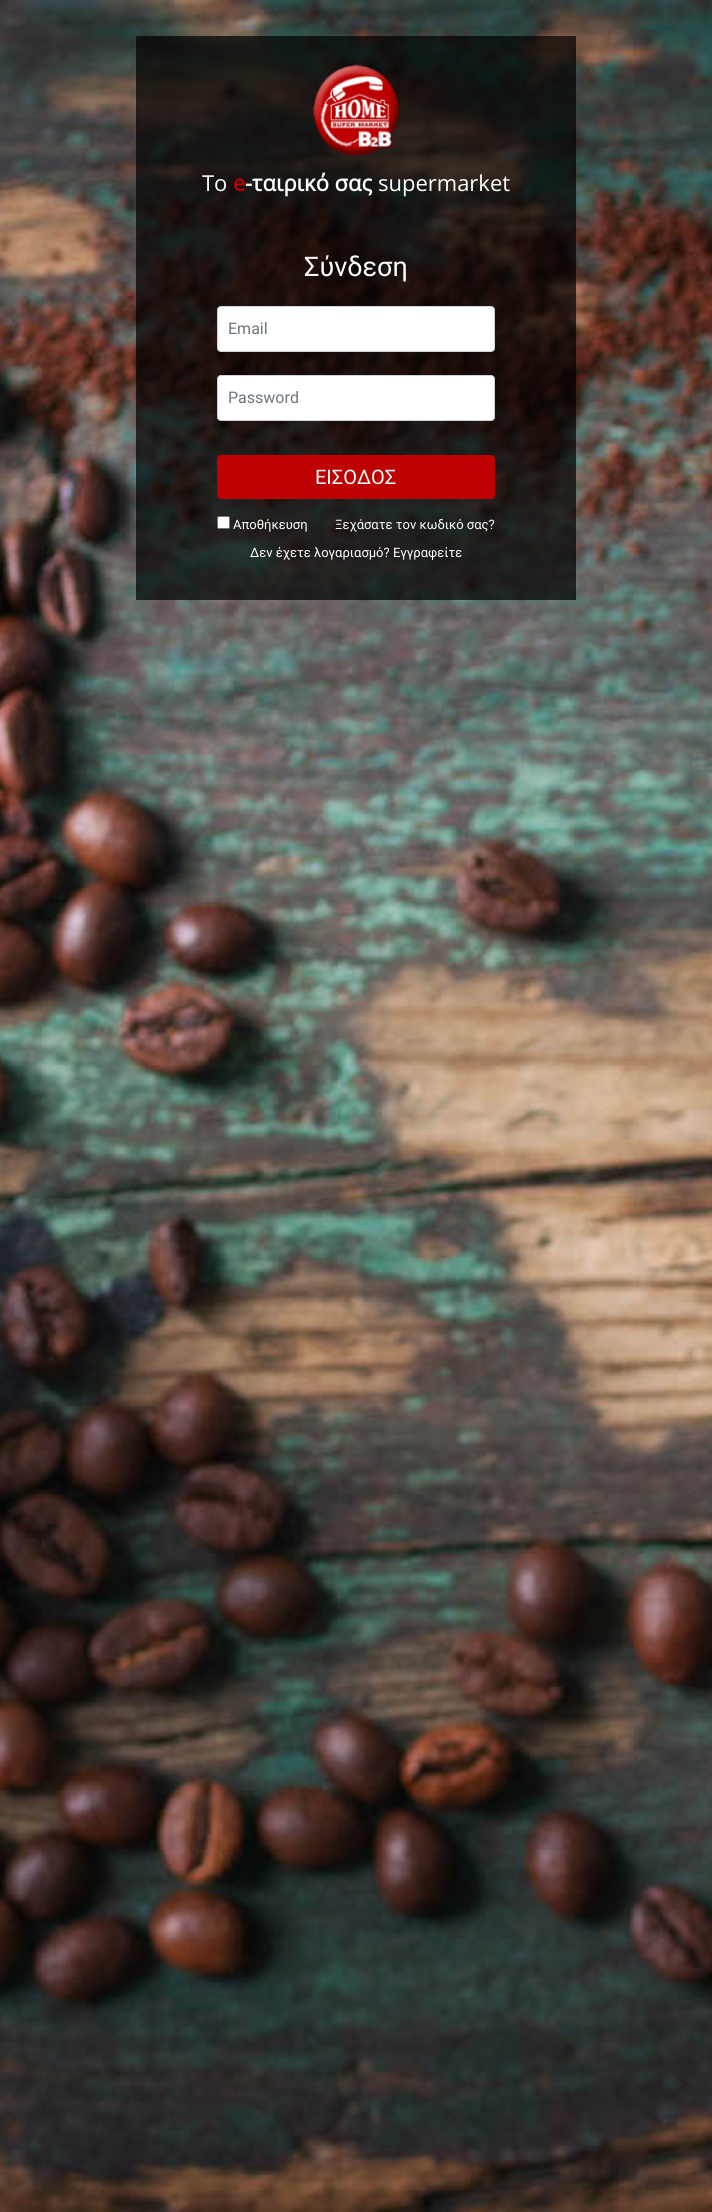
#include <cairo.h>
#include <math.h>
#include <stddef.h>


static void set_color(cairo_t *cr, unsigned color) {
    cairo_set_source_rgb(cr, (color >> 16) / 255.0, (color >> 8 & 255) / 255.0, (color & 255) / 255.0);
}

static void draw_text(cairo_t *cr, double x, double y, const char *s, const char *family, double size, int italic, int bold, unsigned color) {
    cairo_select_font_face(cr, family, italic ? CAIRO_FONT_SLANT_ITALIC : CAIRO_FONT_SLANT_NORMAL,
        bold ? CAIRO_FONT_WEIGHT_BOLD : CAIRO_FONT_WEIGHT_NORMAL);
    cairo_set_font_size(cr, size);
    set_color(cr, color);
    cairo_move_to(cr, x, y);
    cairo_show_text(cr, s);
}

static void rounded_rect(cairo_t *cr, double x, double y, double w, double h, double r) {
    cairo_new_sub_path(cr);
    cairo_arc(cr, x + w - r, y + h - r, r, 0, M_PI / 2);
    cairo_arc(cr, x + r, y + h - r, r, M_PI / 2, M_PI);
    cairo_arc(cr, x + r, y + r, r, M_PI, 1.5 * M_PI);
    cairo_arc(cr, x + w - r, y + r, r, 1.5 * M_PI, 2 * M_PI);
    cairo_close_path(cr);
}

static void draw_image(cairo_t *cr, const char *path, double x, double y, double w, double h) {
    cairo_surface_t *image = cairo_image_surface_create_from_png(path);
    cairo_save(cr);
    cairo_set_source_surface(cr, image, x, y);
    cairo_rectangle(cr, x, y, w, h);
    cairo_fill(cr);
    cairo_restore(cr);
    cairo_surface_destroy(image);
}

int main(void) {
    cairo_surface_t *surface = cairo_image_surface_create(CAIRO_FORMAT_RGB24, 712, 2212);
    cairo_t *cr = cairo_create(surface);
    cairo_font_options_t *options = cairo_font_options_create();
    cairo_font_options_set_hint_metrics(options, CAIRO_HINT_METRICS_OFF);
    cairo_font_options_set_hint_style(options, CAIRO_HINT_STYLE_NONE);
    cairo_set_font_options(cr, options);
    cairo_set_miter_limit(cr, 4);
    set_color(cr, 0xFFFFFF);
    cairo_paint(cr);
    draw_image(cr, "assets/img1.png", 0, 0, 712, 2212);
    cairo_set_source_rgba(cr, 0, 0, 0, 0.7);
    cairo_rectangle(cr, 136, 36, 440, 564);
    cairo_fill(cr);
    draw_image(cr, "assets/img2.png", 312, 64, 87, 92);
    draw_text(cr, 202, 191, "Το", "Open Sans", 22, 0, 0, 0xFFFFFF);
    draw_text(cr, 233, 191, "e", "Open Sans", 22, 0, 1, 0xBD0000);
    draw_text(cr, 245, 191, "-ταιρικό σας", "Open Sans", 22, 0, 1, 0xFFFFFF);
    draw_text(cr, 378, 191, "supermarket", "Open Sans", 22, 0, 0, 0xFFFFFF);
    draw_text(cr, 304, 276, "Σύνδεση", "Roboto", 27, 0, 0, 0xFFFFFF);
    rounded_rect(cr, 217.5, 306.5, 277, 45, 3.5);
    cairo_fill_preserve(cr);
    set_color(cr, 0xCED4DA);
    cairo_set_line_width(cr, 1);
    cairo_stroke(cr);
    draw_text(cr, 228, 334, "Email", "Roboto", 16, 0, 0, 0x6C757D);
    set_color(cr, 0xFFFFFF);
    rounded_rect(cr, 217.5, 375.5, 277, 45, 3.5);
    cairo_fill_preserve(cr);
    set_color(cr, 0xCED4DA);
    cairo_stroke(cr);
    draw_text(cr, 228, 403, "Password", "Roboto", 16, 0, 0, 0x6C757D);
    set_color(cr, 0xBE0000);
    rounded_rect(cr, 217.5, 455.5, 277, 43, 3.5);
    cairo_fill_preserve(cr);
    cairo_stroke(cr);
    draw_text(cr, 315, 484, "ΕΙΣΟΔΟΣ", "Roboto", 20, 0, 0, 0xFFFFFF);
    rounded_rect(cr, 217.5, 516.5, 12, 12, 1.5);
    cairo_fill_preserve(cr);
    set_color(cr, 0x767676);
    cairo_stroke(cr);
    draw_text(cr, 233, 529, "Αποθήκευση", "Roboto", 13, 0, 0, 0xFFFFFF);
    draw_text(cr, 335, 529, "Ξεχάσατε τον κωδικό σας?", "Roboto", 13, 0, 0, 0xFFFFFF);
    draw_text(cr, 250, 557, "Δεν έχετε λογαριασμό? Εγγραφείτε", "Roboto", 13, 0, 0, 0xFFFFFF);
    cairo_surface_write_to_png(surface, "output.png");
    cairo_font_options_destroy(options);
    cairo_destroy(cr);
    cairo_surface_destroy(surface);
    return 0;
}
